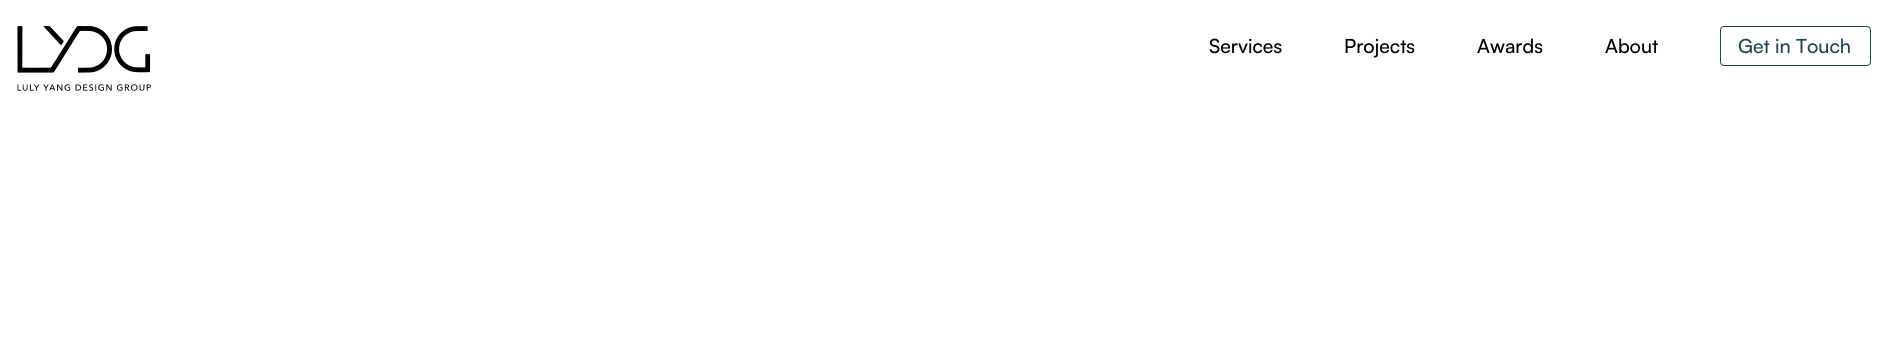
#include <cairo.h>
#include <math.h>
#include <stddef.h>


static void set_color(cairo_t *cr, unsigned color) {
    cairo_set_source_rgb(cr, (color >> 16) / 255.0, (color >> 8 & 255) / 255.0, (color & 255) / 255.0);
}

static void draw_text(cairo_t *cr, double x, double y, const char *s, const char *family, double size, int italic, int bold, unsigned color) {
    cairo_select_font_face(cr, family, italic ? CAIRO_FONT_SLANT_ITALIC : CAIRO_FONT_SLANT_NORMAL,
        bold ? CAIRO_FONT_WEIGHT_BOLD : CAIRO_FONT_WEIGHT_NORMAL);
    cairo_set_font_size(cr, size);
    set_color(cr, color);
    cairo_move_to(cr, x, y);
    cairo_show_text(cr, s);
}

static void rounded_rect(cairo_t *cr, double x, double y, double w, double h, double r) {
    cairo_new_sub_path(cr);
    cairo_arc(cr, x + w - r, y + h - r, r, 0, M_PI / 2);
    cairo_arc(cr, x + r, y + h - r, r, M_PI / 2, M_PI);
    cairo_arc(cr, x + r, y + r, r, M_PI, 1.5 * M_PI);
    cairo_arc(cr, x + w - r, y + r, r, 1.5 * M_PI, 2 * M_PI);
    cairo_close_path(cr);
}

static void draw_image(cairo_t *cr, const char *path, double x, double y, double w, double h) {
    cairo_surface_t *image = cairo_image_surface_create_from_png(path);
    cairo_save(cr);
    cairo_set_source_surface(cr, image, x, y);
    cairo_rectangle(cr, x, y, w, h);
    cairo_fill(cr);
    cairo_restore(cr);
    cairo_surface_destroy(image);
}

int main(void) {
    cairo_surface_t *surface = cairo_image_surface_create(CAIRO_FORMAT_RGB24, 1888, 356);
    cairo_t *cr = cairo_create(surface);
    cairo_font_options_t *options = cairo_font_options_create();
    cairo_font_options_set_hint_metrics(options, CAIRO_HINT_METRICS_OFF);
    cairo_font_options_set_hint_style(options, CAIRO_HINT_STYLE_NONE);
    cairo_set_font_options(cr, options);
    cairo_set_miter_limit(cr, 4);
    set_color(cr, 0xFFFFFF);
    cairo_paint(cr);
    draw_image(cr, "assets/img1.png", 17, 26, 134, 65);
    draw_text(cr, 1209, 53, "Services", "Satoshi Medium", 19.5, 0, 0, 0x010101);
    draw_text(cr, 1344, 53, "Projects", "Satoshi Medium", 19.5, 0, 0, 0x010101);
    draw_text(cr, 1477, 53, "Awards", "Satoshi Medium", 19.5, 0, 0, 0x010101);
    draw_text(cr, 1605, 53, "About", "Satoshi Medium", 19.5, 0, 0, 0x010101);
    rounded_rect(cr, 1720.5, 26.5, 150, 39, 3.5);
    set_color(cr, 0x1C4956);
    cairo_set_line_width(cr, 1);
    cairo_stroke(cr);
    draw_text(cr, 1738, 53, "Get in Touch", "Satoshi Medium", 19.5, 0, 0, 0x1C4956);
    cairo_surface_write_to_png(surface, "output.png");
    cairo_font_options_destroy(options);
    cairo_destroy(cr);
    cairo_surface_destroy(surface);
    return 0;
}
